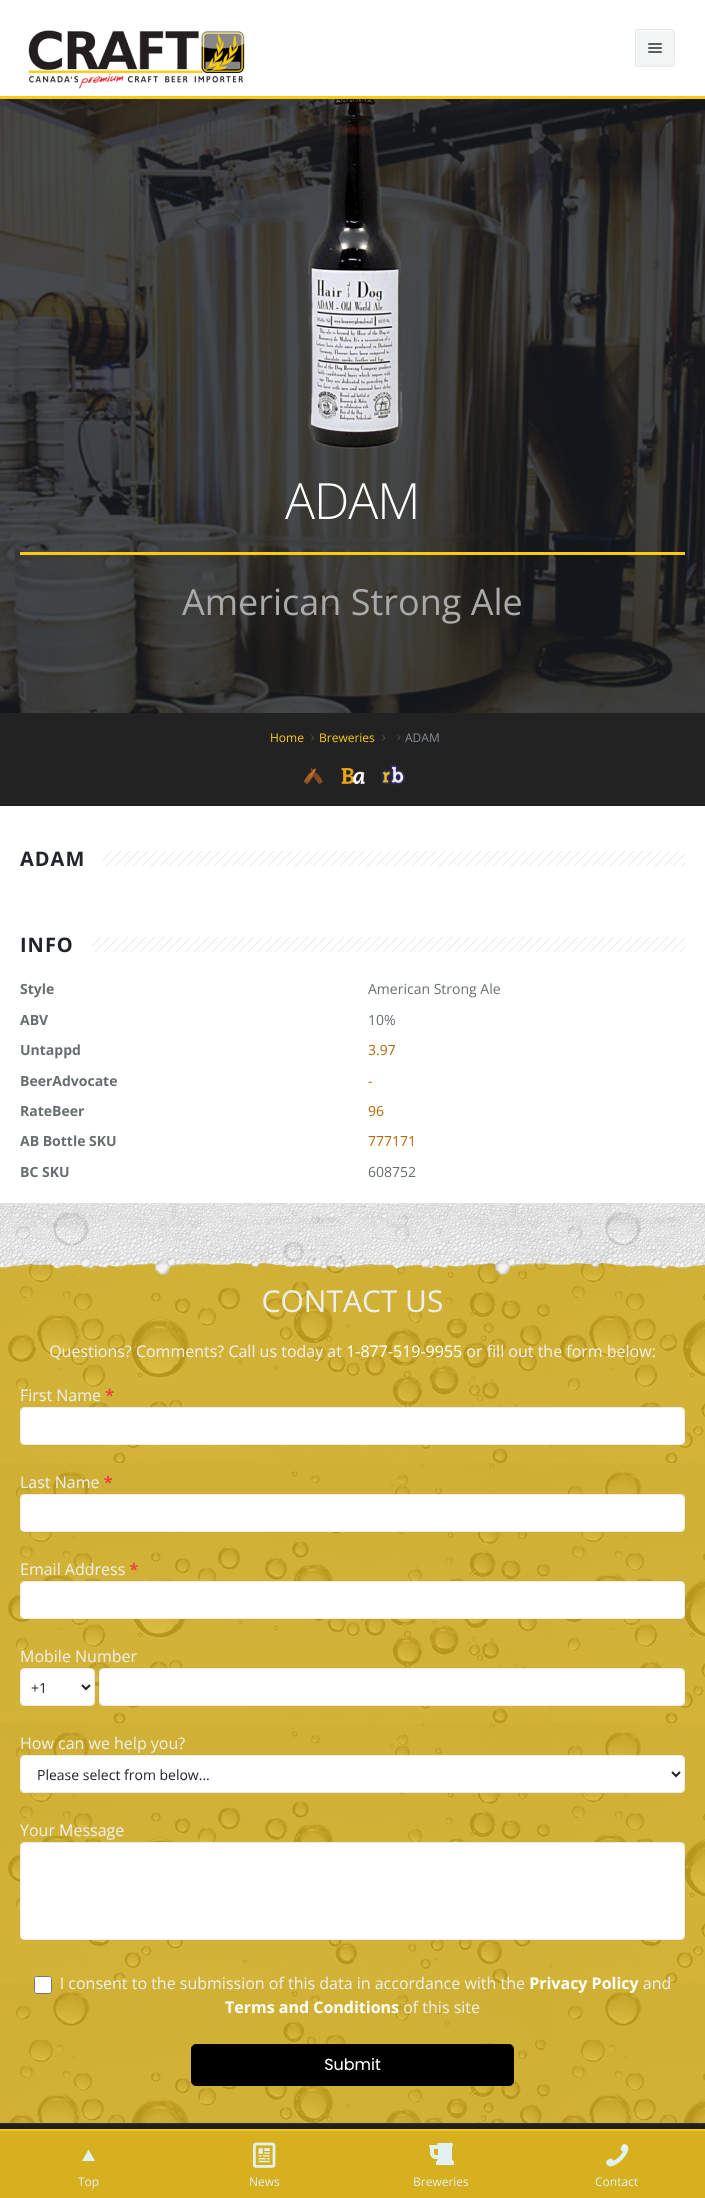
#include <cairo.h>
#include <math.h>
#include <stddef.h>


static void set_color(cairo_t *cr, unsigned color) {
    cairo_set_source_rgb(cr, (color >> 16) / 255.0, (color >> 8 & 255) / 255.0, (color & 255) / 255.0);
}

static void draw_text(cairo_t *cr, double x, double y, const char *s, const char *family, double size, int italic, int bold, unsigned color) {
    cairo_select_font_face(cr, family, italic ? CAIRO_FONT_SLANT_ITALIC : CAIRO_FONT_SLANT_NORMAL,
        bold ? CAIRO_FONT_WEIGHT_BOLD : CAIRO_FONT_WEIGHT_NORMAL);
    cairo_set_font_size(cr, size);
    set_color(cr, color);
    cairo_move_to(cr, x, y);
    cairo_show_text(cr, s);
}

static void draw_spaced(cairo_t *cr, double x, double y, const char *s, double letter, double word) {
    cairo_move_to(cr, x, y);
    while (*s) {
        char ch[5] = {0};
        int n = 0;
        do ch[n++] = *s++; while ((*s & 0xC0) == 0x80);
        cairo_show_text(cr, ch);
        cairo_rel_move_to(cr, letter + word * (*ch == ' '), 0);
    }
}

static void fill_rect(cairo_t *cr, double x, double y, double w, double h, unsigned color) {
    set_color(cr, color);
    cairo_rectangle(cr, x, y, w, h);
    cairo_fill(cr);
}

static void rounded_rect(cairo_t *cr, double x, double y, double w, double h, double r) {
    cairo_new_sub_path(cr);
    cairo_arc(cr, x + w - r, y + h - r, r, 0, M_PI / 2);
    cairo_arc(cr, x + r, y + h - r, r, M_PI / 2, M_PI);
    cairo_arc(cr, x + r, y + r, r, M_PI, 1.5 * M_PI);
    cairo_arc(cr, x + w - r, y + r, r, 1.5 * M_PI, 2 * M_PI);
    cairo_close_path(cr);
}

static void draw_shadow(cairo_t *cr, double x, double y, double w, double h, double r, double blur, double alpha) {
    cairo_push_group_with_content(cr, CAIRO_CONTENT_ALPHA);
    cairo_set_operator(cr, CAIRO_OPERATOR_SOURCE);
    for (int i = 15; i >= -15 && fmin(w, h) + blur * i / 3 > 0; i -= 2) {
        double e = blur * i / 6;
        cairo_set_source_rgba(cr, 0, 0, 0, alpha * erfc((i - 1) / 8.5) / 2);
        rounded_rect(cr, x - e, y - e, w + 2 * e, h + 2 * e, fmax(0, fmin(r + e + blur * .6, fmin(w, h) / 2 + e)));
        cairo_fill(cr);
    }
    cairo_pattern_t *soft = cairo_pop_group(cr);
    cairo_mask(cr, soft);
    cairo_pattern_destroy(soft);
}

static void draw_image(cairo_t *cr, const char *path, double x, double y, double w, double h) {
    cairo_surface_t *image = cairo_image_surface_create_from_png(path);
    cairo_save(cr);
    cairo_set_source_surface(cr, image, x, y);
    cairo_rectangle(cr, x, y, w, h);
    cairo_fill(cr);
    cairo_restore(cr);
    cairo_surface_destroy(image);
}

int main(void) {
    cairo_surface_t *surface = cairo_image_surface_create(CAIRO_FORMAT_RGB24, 705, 2198);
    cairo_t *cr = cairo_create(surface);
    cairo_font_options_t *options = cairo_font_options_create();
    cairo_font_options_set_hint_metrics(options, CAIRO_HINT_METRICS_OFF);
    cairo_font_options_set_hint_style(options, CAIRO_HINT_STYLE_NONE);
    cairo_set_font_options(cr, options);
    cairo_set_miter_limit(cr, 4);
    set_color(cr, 0xFFFFFF);
    cairo_paint(cr);
    fill_rect(cr, 0, 96, 705, 3, 0xFDCB0E);
    draw_image(cr, "assets/img1.png", 28, 30, 217, 59);
    set_color(cr, 0xF4F6F6);
    rounded_rect(cr, 635, 29, 40, 38, 3);
    cairo_fill(cr);
    set_color(cr, 0xF8FAFA);
    cairo_set_fill_rule(cr, CAIRO_FILL_RULE_EVEN_ODD);
    cairo_new_path(cr);
    cairo_move_to(cr, 638, 31);
    cairo_line_to(cr, 672, 31);
    cairo_line_to(cr, 674, 33);
    cairo_line_to(cr, 674, 32);
    cairo_curve_to(cr, 674, 31, 673, 30, 672, 30);
    cairo_line_to(cr, 638, 30);
    cairo_curve_to(cr, 637, 30, 636, 31, 636, 32);
    cairo_close_path(cr);
    cairo_move_to(cr, 674, 60);
    cairo_line_to(cr, 673.5, 65);
    cairo_curve_to(cr, 674.5, 63.5, 674, 61.5, 674, 60);
    cairo_close_path(cr);
    cairo_fill(cr);
    rounded_rect(cr, 635.5, 29.5, 39, 37, 2.5);
    set_color(cr, 0xE3E9E9);
    cairo_set_line_width(cr, 1);
    cairo_stroke(cr);
    draw_image(cr, "assets/img2.png", 648, 43, 14, 10);
    draw_image(cr, "assets/img3.png", 0, 99, 705, 614);
    draw_image(cr, "assets/img4.png", 308, 99, 95, 350);
    cairo_select_font_face(cr, "Open Sans Light", CAIRO_FONT_SLANT_NORMAL, CAIRO_FONT_WEIGHT_NORMAL);
    cairo_set_font_size(cr, 50);
    set_color(cr, 0xFFFFFF);
    draw_spaced(cr, 285, 519, "ADAM", -1, 0);
    fill_rect(cr, 20, 552, 665, 3, 0xFDCB0E);
    draw_text(cr, 182, 615, "American Strong Ale", "Open Sans", 36, 0, 0, 0xAAAAAA);
    fill_rect(cr, 0, 713, 705, 92, 0x222222);
    fill_rect(cr, 0, 805, 705, 1, 0x1A1E22);
    draw_text(cr, 270, 742, "Home", "Open Sans", 12, 0, 0, 0xFDCB0E);
    draw_image(cr, "assets/img5.png", 311, 735, 4, 6);
    draw_text(cr, 319, 742, "Breweries", "Open Sans", 12, 0, 0, 0xFDCB0E);
    draw_image(cr, "assets/img5.png", 382, 735, 4, 6);
    draw_image(cr, "assets/img5.png", 397, 735, 4, 6);
    draw_text(cr, 405, 742, "ADAM", "Open Sans", 12, 0, 0, 0x858D91);
    draw_image(cr, "assets/img6.png", 303, 768, 20, 16);
    draw_image(cr, "assets/img7.png", 341, 768, 24, 17);
    draw_image(cr, "assets/img8.png", 381, 765, 24, 22);
    cairo_select_font_face(cr, "Open Sans", CAIRO_FONT_SLANT_NORMAL, CAIRO_FONT_WEIGHT_BOLD);
    cairo_set_font_size(cr, 20);
    set_color(cr, 0x21252B);
    draw_spaced(cr, 20, 866, "ADAM", 1, 0);
    draw_image(cr, "assets/img9.png", 103, 851, 582, 15);
    draw_spaced(cr, 20, 952, "INFO", 1, 0);
    draw_image(cr, "assets/img10.png", 92, 937, 593, 15);
    draw_text(cr, 20, 994, "Style", "Open Sans", 14, 0, 1, 0x666E70);
    draw_text(cr, 368, 994, "American Strong Ale", "Open Sans", 14, 0, 0, 0x666E70);
    draw_text(cr, 20, 1025, "ABV", "Open Sans", 14, 0, 1, 0x666E70);
    draw_text(cr, 368, 1025, "10%", "Open Sans", 14, 0, 0, 0x666E70);
    draw_text(cr, 20, 1055, "Untappd", "Open Sans", 14, 0, 1, 0x666E70);
    draw_text(cr, 368, 1055, "3.97", "Open Sans", 14, 0, 0, 0xB36708);
    draw_text(cr, 20, 1086, "BeerAdvocate", "Open Sans", 14, 0, 1, 0x666E70);
    draw_text(cr, 368, 1086, "-", "Open Sans", 14, 0, 0, 0xB36708);
    draw_text(cr, 20, 1116, "RateBeer", "Open Sans", 14, 0, 1, 0x666E70);
    draw_text(cr, 368, 1116, "96", "Open Sans", 14, 0, 0, 0xB36708);
    draw_text(cr, 20, 1146, "AB Bottle SKU", "Open Sans", 14, 0, 1, 0x666E70);
    draw_text(cr, 368, 1146, "777171", "Open Sans", 14, 0, 0, 0xB36708);
    draw_text(cr, 20, 1177, "BC SKU", "Open Sans", 14, 0, 1, 0x666E70);
    draw_text(cr, 368, 1177, "608752", "Open Sans", 14, 0, 0, 0x666E70);
    fill_rect(cr, 0, 1263, 705, 860, 0xD6B01E);
    draw_image(cr, "assets/img11.png", 0, 1203, 705, 72);
    draw_image(cr, "assets/img12.png", 0, 1203, 705, 920);
    draw_image(cr, "assets/img13.png", 20, 1290, 665, 796);
    fill_rect(cr, 0, 2124, 705, 5, 0x222222);
    fill_rect(cr, 0, 2123, 705, 1, 0x2E343A);
    set_color(cr, 0x000000);
    draw_shadow(cr, 0, 2129, 705, 69, 0, 4, 0.4);
    fill_rect(cr, 0, 2131, 705, 67, 0xD6B01E);
    fill_rect(cr, 0, 2129, 705, 2, 0xFDCB0E);
    set_color(cr, 0xE2F1F1);
    cairo_set_fill_rule(cr, CAIRO_FILL_RULE_WINDING);
    cairo_new_path(cr);
    cairo_move_to(cr, 82, 2161);
    cairo_line_to(cr, 88.5, 2149.5);
    cairo_line_to(cr, 95, 2161);
    cairo_close_path(cr);
    cairo_fill(cr);
    draw_text(cr, 78, 2186, "Top", "Open Sans", 12, 0, 0, 0xE2F1F1);
    draw_image(cr, "assets/img14.png", 253, 2142, 23, 26);
    draw_text(cr, 249, 2186, "News", "Open Sans", 12, 0, 0, 0xE2F1F1);
    draw_image(cr, "assets/img15.png", 429, 2143, 25, 22);
    draw_text(cr, 413, 2186, "Breweries", "Open Sans", 12, 0, 0, 0xE2F1F1);
    draw_image(cr, "assets/img16.png", 606, 2144, 23, 23);
    draw_text(cr, 595, 2186, "Contact", "Open Sans", 12, 0, 0, 0xE2F1F1);
    cairo_surface_write_to_png(surface, "output.png");
    cairo_font_options_destroy(options);
    cairo_destroy(cr);
    cairo_surface_destroy(surface);
    return 0;
}
